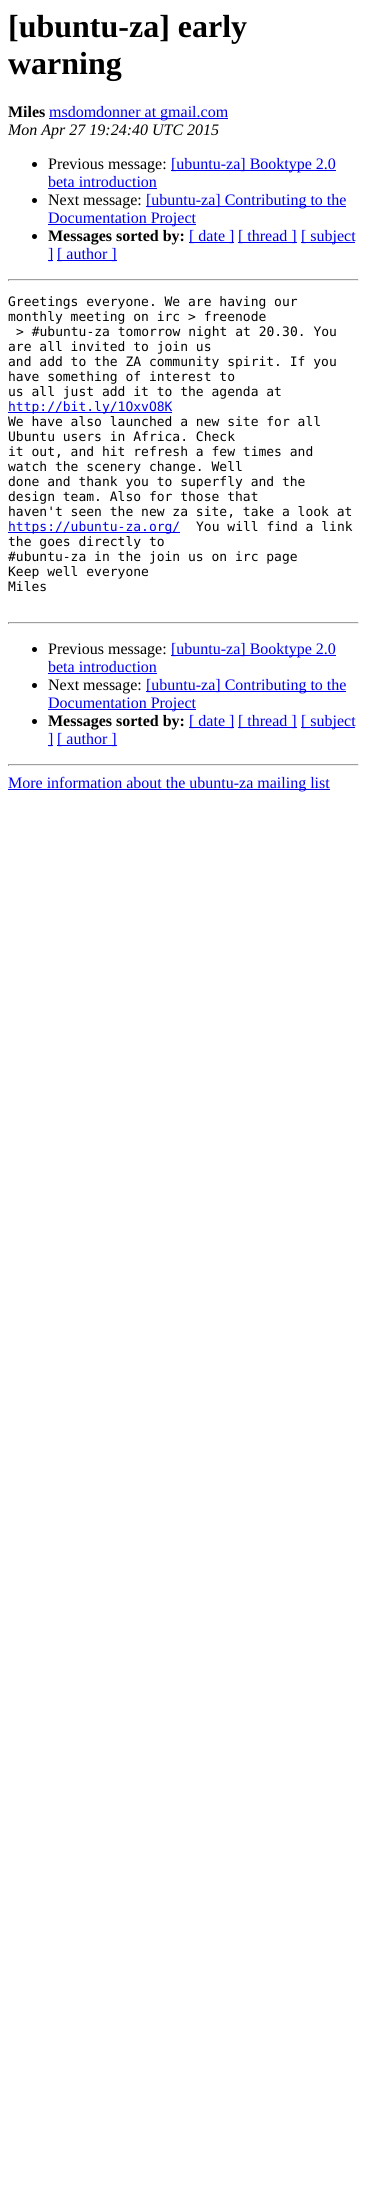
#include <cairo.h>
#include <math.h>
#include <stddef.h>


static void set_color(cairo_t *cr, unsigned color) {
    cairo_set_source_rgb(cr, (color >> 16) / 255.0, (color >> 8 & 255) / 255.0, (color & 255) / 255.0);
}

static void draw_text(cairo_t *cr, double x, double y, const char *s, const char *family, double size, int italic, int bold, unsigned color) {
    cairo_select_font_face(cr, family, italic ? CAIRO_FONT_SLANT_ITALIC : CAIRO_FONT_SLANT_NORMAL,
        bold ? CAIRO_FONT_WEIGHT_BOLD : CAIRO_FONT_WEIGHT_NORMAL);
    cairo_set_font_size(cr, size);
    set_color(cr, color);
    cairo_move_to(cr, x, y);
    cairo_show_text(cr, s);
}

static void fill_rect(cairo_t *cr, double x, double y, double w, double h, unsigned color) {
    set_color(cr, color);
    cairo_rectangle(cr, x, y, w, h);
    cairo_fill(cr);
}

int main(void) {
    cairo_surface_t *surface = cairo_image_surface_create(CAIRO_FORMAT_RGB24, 367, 2186);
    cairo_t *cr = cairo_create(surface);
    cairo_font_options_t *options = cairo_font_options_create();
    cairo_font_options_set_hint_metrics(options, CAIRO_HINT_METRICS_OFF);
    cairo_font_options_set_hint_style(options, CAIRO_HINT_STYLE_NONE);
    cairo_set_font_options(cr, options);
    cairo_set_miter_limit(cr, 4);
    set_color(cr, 0xFFFFFF);
    cairo_paint(cr);
    draw_text(cr, 8, 37, "[ubuntu-za] early", "Liberation Serif", 32, 0, 1, 0x000000);
    draw_text(cr, 8, 74, "warning", "Liberation Serif", 32, 0, 1, 0x000000);
    draw_text(cr, 8, 117, "Miles", "Liberation Serif", 16, 0, 1, 0x000000);
    fill_rect(cr, 49, 118, 179, 1, 0x0000EE);
    draw_text(cr, 49, 117, "msdomdonner at gmail.com", "Liberation Serif", 16, 0, 0, 0x0000EE);
    draw_text(cr, 8, 135, "Mon Apr 27 19:24:40 UTC 2015", "Liberation Serif", 16, 1, 0, 0x000000);
    cairo_new_path(cr);
    cairo_arc(cr, 34.5, 164.5, 2.5, 0, 2 * M_PI);
    cairo_fill(cr);
    draw_text(cr, 48, 169, "Previous message:", "Liberation Serif", 16, 0, 0, 0x000000);
    fill_rect(cr, 171, 170, 165, 1, 0x0000EE);
    draw_text(cr, 171, 169, "[ubuntu-za] Booktype 2.0", "Liberation Serif", 16, 0, 0, 0x0000EE);
    draw_text(cr, 48, 187, "beta introduction", "Liberation Serif", 16, 0, 0, 0x0000EE);
    fill_rect(cr, 48, 188, 109, 1, 0x0000EE);
    set_color(cr, 0x000000);
    cairo_new_path(cr);
    cairo_arc(cr, 34.5, 200.5, 2.5, 0, 2 * M_PI);
    cairo_fill(cr);
    draw_text(cr, 48, 205, "Next message:", "Liberation Serif", 16, 0, 0, 0x000000);
    fill_rect(cr, 146, 206, 200, 1, 0x0000EE);
    draw_text(cr, 146, 205, "[ubuntu-za] Contributing to the", "Liberation Serif", 16, 0, 0, 0x0000EE);
    fill_rect(cr, 48, 224, 148, 1, 0x0000EE);
    draw_text(cr, 48, 223, "Documentation Project", "Liberation Serif", 16, 0, 0, 0x0000EE);
    set_color(cr, 0x000000);
    cairo_new_path(cr);
    cairo_arc(cr, 34.5, 236.5, 2.5, 0, 2 * M_PI);
    cairo_fill(cr);
    draw_text(cr, 48, 241, "Messages sorted by:", "Liberation Serif", 16, 0, 1, 0x000000);
    fill_rect(cr, 189, 242, 45, 1, 0x0000EE);
    draw_text(cr, 189, 241, "[ date ]", "Liberation Serif", 16, 0, 0, 0x0000EE);
    fill_rect(cr, 238, 242, 59, 1, 0x0000EE);
    draw_text(cr, 238, 241, "[ thread ]", "Liberation Serif", 16, 0, 0, 0x0000EE);
    fill_rect(cr, 301, 242, 54, 1, 0x0000EE);
    draw_text(cr, 301, 241, "[ subject", "Liberation Serif", 16, 0, 0, 0x0000EE);
    fill_rect(cr, 48, 260, 5, 1, 0x0000EE);
    draw_text(cr, 48, 259, "]", "Liberation Serif", 16, 0, 0, 0x0000EE);
    fill_rect(cr, 57, 260, 60, 1, 0x0000EE);
    draw_text(cr, 57, 259, "[ author ]", "Liberation Serif", 16, 0, 0, 0x0000EE);
    fill_rect(cr, 8, 279, 351, 1, 0x9F9F9F);
    fill_rect(cr, 358, 279, 1, 2, 0xEEEEEE);
    fill_rect(cr, 8, 280, 351, 1, 0xEEEEEE);
    fill_rect(cr, 8, 279, 1, 2, 0x9F9F9F);
    draw_text(cr, 8, 306, "Greetings everyone. We are having our", "DejaVu Sans Mono", 13, 0, 0, 0x000000);
    draw_text(cr, 8, 321, "monthly meeting on irc > freenode", "DejaVu Sans Mono", 13, 0, 0, 0x000000);
    draw_text(cr, 16, 336, "> #ubuntu-za tomorrow night at 20.30. You", "DejaVu Sans Mono", 13, 0, 0, 0x000000);
    draw_text(cr, 8, 351, "are all invited to join us", "DejaVu Sans Mono", 13, 0, 0, 0x000000);
    draw_text(cr, 8, 366, "and add to the ZA community spirit. If you", "DejaVu Sans Mono", 13, 0, 0, 0x000000);
    draw_text(cr, 8, 381, "have something of interest to", "DejaVu Sans Mono", 13, 0, 0, 0x000000);
    draw_text(cr, 8, 396, "us all just add it to the agenda at", "DejaVu Sans Mono", 13, 0, 0, 0x000000);
    fill_rect(cr, 8, 412, 164, 1, 0x0000EE);
    draw_text(cr, 8, 411, "http://bit.ly/1OxvO8K", "DejaVu Sans Mono", 13, 0, 0, 0x0000EE);
    draw_text(cr, 8, 426, "We have also launched a new site for all", "DejaVu Sans Mono", 13, 0, 0, 0x000000);
    draw_text(cr, 8, 441, "Ubuntu users in Africa. Check", "DejaVu Sans Mono", 13, 0, 0, 0x000000);
    draw_text(cr, 8, 456, "it out, and hit refresh a few times and", "DejaVu Sans Mono", 13, 0, 0, 0x000000);
    draw_text(cr, 8, 471, "watch the scenery change. Well", "DejaVu Sans Mono", 13, 0, 0, 0x000000);
    draw_text(cr, 8, 486, "done and thank you to superfly and the", "DejaVu Sans Mono", 13, 0, 0, 0x000000);
    draw_text(cr, 8, 501, "design team. Also for those that", "DejaVu Sans Mono", 13, 0, 0, 0x000000);
    draw_text(cr, 8, 516, "haven't seen the new za site, take a look at", "DejaVu Sans Mono", 13, 0, 0, 0x000000);
    fill_rect(cr, 8, 532, 172, 1, 0x0000EE);
    draw_text(cr, 8, 531, "https://ubuntu-za.org/", "DejaVu Sans Mono", 13, 0, 0, 0x0000EE);
    draw_text(cr, 196, 531, "You will find a link", "DejaVu Sans Mono", 13, 0, 0, 0x000000);
    draw_text(cr, 8, 546, "the goes directly to", "DejaVu Sans Mono", 13, 0, 0, 0x000000);
    draw_text(cr, 8, 561, "#ubuntu-za in the join us on irc page", "DejaVu Sans Mono", 13, 0, 0, 0x000000);
    draw_text(cr, 8, 576, "Keep well everyone", "DejaVu Sans Mono", 13, 0, 0, 0x000000);
    draw_text(cr, 8, 591, "Miles", "DejaVu Sans Mono", 13, 0, 0, 0x000000);
    fill_rect(cr, 8, 622, 351, 1, 0x9F9F9F);
    fill_rect(cr, 358, 622, 1, 2, 0xEEEEEE);
    fill_rect(cr, 8, 623, 351, 1, 0xEEEEEE);
    fill_rect(cr, 8, 622, 1, 2, 0x9F9F9F);
    set_color(cr, 0x000000);
    cairo_new_path(cr);
    cairo_arc(cr, 34.5, 649.5, 2.5, 0, 2 * M_PI);
    cairo_fill(cr);
    draw_text(cr, 48, 654, "Previous message:", "Liberation Serif", 16, 0, 0, 0x000000);
    fill_rect(cr, 171, 655, 165, 1, 0x0000EE);
    draw_text(cr, 171, 654, "[ubuntu-za] Booktype 2.0", "Liberation Serif", 16, 0, 0, 0x0000EE);
    draw_text(cr, 48, 672, "beta introduction", "Liberation Serif", 16, 0, 0, 0x0000EE);
    fill_rect(cr, 48, 673, 109, 1, 0x0000EE);
    set_color(cr, 0x000000);
    cairo_new_path(cr);
    cairo_arc(cr, 34.5, 685.5, 2.5, 0, 2 * M_PI);
    cairo_fill(cr);
    draw_text(cr, 48, 690, "Next message:", "Liberation Serif", 16, 0, 0, 0x000000);
    fill_rect(cr, 146, 691, 200, 1, 0x0000EE);
    draw_text(cr, 146, 690, "[ubuntu-za] Contributing to the", "Liberation Serif", 16, 0, 0, 0x0000EE);
    fill_rect(cr, 48, 709, 148, 1, 0x0000EE);
    draw_text(cr, 48, 708, "Documentation Project", "Liberation Serif", 16, 0, 0, 0x0000EE);
    set_color(cr, 0x000000);
    cairo_new_path(cr);
    cairo_arc(cr, 34.5, 721.5, 2.5, 0, 2 * M_PI);
    cairo_fill(cr);
    draw_text(cr, 48, 726, "Messages sorted by:", "Liberation Serif", 16, 0, 1, 0x000000);
    fill_rect(cr, 189, 727, 45, 1, 0x0000EE);
    draw_text(cr, 189, 726, "[ date ]", "Liberation Serif", 16, 0, 0, 0x0000EE);
    fill_rect(cr, 238, 727, 59, 1, 0x0000EE);
    draw_text(cr, 238, 726, "[ thread ]", "Liberation Serif", 16, 0, 0, 0x0000EE);
    fill_rect(cr, 301, 727, 54, 1, 0x0000EE);
    draw_text(cr, 301, 726, "[ subject", "Liberation Serif", 16, 0, 0, 0x0000EE);
    fill_rect(cr, 48, 745, 5, 1, 0x0000EE);
    draw_text(cr, 48, 744, "]", "Liberation Serif", 16, 0, 0, 0x0000EE);
    fill_rect(cr, 57, 745, 60, 1, 0x0000EE);
    draw_text(cr, 57, 744, "[ author ]", "Liberation Serif", 16, 0, 0, 0x0000EE);
    fill_rect(cr, 8, 764, 351, 1, 0x9F9F9F);
    fill_rect(cr, 358, 764, 1, 2, 0xEEEEEE);
    fill_rect(cr, 8, 765, 351, 1, 0xEEEEEE);
    fill_rect(cr, 8, 764, 1, 2, 0x9F9F9F);
    fill_rect(cr, 8, 789, 322, 1, 0x0000EE);
    draw_text(cr, 8, 788, "More information about the ubuntu-za mailing list", "Liberation Serif", 16, 0, 0, 0x0000EE);
    cairo_surface_write_to_png(surface, "output.png");
    cairo_font_options_destroy(options);
    cairo_destroy(cr);
    cairo_surface_destroy(surface);
    return 0;
}
